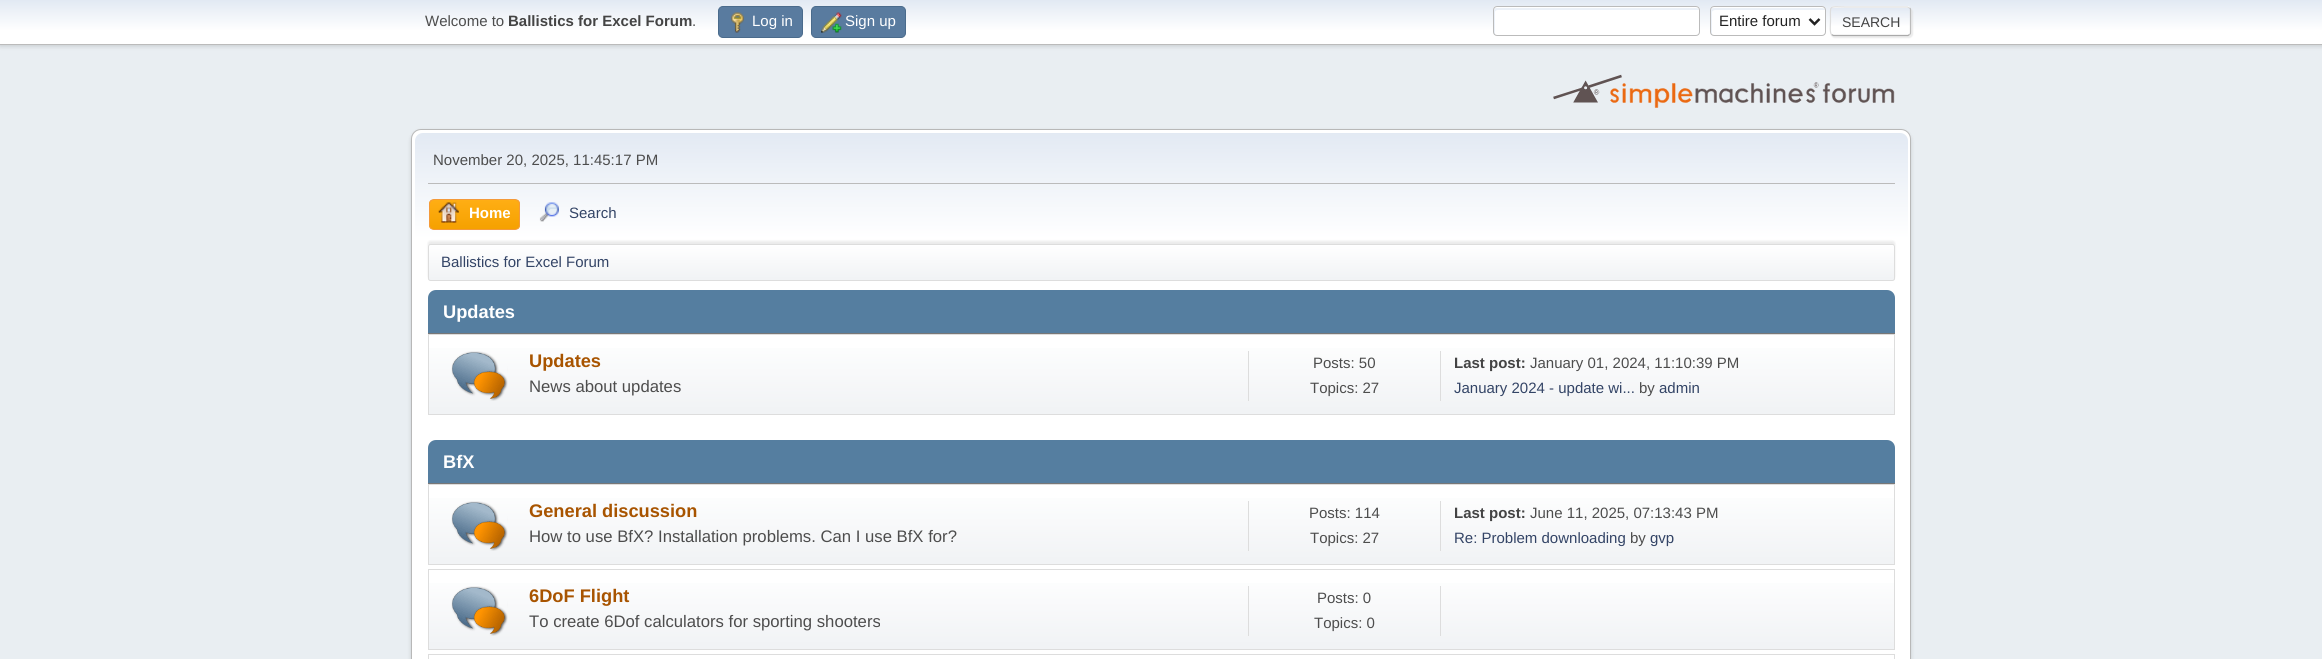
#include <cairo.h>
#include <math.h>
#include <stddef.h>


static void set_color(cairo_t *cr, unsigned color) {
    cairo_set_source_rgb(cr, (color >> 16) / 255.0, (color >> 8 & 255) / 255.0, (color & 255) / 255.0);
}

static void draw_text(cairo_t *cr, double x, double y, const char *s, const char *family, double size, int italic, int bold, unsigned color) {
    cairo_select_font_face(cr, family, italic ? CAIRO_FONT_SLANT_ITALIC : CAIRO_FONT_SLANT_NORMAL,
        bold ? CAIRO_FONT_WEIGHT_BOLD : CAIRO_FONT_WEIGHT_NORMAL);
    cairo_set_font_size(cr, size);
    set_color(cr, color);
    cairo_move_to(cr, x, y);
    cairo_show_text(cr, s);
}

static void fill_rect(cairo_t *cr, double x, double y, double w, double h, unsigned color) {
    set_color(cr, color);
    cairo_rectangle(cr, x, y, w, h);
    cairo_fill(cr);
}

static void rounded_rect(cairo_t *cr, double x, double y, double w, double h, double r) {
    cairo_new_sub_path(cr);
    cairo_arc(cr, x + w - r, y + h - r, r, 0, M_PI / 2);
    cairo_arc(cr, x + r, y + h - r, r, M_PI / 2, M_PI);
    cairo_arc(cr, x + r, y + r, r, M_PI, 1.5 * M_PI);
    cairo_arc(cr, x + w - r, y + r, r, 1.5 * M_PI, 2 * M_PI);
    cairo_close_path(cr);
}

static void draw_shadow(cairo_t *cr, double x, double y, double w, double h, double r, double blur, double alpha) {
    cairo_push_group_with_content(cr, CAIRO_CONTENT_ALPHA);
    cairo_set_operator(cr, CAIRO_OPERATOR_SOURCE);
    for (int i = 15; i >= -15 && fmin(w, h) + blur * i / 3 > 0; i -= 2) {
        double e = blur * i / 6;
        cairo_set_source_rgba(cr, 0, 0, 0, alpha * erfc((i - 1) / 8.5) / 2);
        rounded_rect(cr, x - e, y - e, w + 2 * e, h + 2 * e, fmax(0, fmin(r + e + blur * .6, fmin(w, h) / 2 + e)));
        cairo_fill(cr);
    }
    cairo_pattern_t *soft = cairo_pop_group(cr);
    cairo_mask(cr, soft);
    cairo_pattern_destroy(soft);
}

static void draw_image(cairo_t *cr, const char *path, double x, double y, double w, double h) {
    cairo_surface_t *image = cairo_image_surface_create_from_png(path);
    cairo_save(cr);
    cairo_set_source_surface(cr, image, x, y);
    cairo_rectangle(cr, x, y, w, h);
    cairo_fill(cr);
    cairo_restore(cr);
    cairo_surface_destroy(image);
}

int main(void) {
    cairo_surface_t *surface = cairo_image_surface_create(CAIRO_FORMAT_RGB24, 2322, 659);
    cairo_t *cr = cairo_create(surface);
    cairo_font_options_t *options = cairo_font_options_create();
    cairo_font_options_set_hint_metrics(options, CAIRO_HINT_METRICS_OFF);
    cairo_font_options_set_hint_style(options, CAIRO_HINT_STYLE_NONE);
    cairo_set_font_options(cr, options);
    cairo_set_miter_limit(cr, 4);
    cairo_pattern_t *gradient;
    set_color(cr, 0xE9EEF2);
    cairo_paint(cr);
    set_color(cr, 0x000000);
    draw_shadow(cr, 0, 1, 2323, 45, 0, 2.5, 0.16);
    gradient = cairo_pattern_create_linear(1161, 0, 1161, 44);
    cairo_pattern_add_color_stop_rgba(gradient, 0, 0.886, 0.914, 0.953, 1);
    cairo_pattern_add_color_stop_rgba(gradient, 0.7, 1, 1, 1, 1);
    cairo_set_source(cr, gradient);
    cairo_pattern_destroy(gradient);
    cairo_rectangle(cr, 0, 0, 2322, 44);
    cairo_fill(cr);
    fill_rect(cr, 0, 44, 2322, 1, 0xBBBBBB);
    draw_text(cr, 425, 26, "Welcome to", "Liberation Sans", 15, 0, 0, 0x4D4D4D);
    draw_text(cr, 508, 26, "Ballistics for Excel Forum", "Liberation Sans", 15, 0, 1, 0x444444);
    draw_text(cr, 692, 26, ".", "Liberation Sans", 15, 0, 0, 0x4D4D4D);
    set_color(cr, 0x597B9F);
    rounded_rect(cr, 718.5, 6.5, 84, 31, 4.5);
    cairo_fill_preserve(cr);
    set_color(cr, 0x4A6B8C);
    cairo_set_line_width(cr, 1);
    cairo_stroke(cr);
    draw_image(cr, "assets/img1.png", 731, 12, 13, 21);
    draw_text(cr, 752, 26, "Log in", "Liberation Sans", 15, 0, 0, 0xFFFFFF);
    set_color(cr, 0x597B9F);
    rounded_rect(cr, 811.5, 6.5, 94, 31, 4.5);
    cairo_fill_preserve(cr);
    set_color(cr, 0x4A6B8C);
    cairo_stroke(cr);
    draw_image(cr, "assets/img2.png", 821, 12, 21, 21);
    draw_text(cr, 845, 26, "Sign up", "Liberation Sans", 15, 0, 0, 0xFFFFFF);
    rounded_rect(cr, 1493, 6, 207, 30, 4);
    cairo_fill(cr);
    set_color(cr, 0xECF1F8);
    cairo_new_path(cr);
    cairo_move_to(cr, 1498, 10);
    cairo_line_to(cr, 1699, 10);
    cairo_curve_to(cr, 1699, 9, 1698, 8, 1696, 8);
    cairo_line_to(cr, 1496, 8);
    cairo_curve_to(cr, 1495, 8, 1494, 9, 1494, 10);
    cairo_line_to(cr, 1494, 32);
    cairo_curve_to(cr, 1494, 33, 1494, 34, 1495, 35);
    cairo_line_to(cr, 1495, 12);
    cairo_curve_to(cr, 1495, 11, 1496, 10, 1498, 10);
    cairo_close_path(cr);
    cairo_fill(cr);
    rounded_rect(cr, 1493.5, 6.5, 206, 29, 3.5);
    set_color(cr, 0xBBBBBB);
    cairo_stroke(cr);
    set_color(cr, 0xFFFFFF);
    rounded_rect(cr, 1710, 6, 116, 30, 4);
    cairo_fill(cr);
    set_color(cr, 0xECF1F8);
    cairo_new_path(cr);
    cairo_move_to(cr, 1715, 10);
    cairo_line_to(cr, 1825, 10);
    cairo_curve_to(cr, 1825, 9, 1824, 8, 1822, 8);
    cairo_line_to(cr, 1714, 8);
    cairo_curve_to(cr, 1712, 8, 1711, 9, 1711, 10);
    cairo_line_to(cr, 1711, 32);
    cairo_curve_to(cr, 1711, 33, 1711, 34, 1712, 35);
    cairo_line_to(cr, 1712, 12);
    cairo_curve_to(cr, 1712, 11, 1714, 10, 1715, 10);
    cairo_close_path(cr);
    cairo_fill(cr);
    rounded_rect(cr, 1710.5, 6.5, 115, 29, 3.5);
    set_color(cr, 0xBBBBBB);
    cairo_stroke(cr);
    cairo_new_path(cr);
    cairo_move_to(cr, 1809.5, 19);
    cairo_line_to(cr, 1814.5, 24);
    cairo_line_to(cr, 1819.5, 19);
    set_color(cr, 0x222222);
    cairo_set_line_width(cr, 2.5);
    cairo_stroke(cr);
    draw_text(cr, 1719, 26, "Entire forum", "Liberation Sans", 15, 0, 0, 0x222222);
    set_color(cr, 0xDDDDDD);
    draw_shadow(cr, 1831, 8, 82, 30, 4, 0.5, 0.57);
    cairo_save(cr);
    rounded_rect(cr, 1830, 6, 81, 30, 4);
    cairo_clip(cr);
    gradient = cairo_pattern_create_linear(1871, -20, 1871, 7.5);
    cairo_pattern_add_color_stop_rgba(gradient, 0, 0.886, 0.914, 0.953, 1);
    cairo_pattern_add_color_stop_rgba(gradient, 0.7, 1, 1, 1, 1);
    cairo_set_source(cr, gradient);
    cairo_pattern_destroy(gradient);
    cairo_rectangle(cr, 1830, 6, 81, 2);
    cairo_fill(cr);
    gradient = cairo_pattern_create_linear(1871, 7.5, 1871, 35);
    cairo_pattern_add_color_stop_rgba(gradient, 0, 0.886, 0.914, 0.953, 1);
    cairo_pattern_add_color_stop_rgba(gradient, 0.7, 1, 1, 1, 1);
    cairo_set_source(cr, gradient);
    cairo_pattern_destroy(gradient);
    cairo_rectangle(cr, 1830, 8, 81, 27);
    cairo_fill(cr);
    cairo_restore(cr);
    cairo_new_path(cr);
    cairo_move_to(cr, 1909.5, 8);
    cairo_curve_to(cr, 1910.5, 8.5, 1910.5, 9, 1910.5, 10);
    cairo_line_to(cr, 1910.5, 32.5);
    cairo_curve_to(cr, 1910.5, 33.5, 1910.5, 34, 1909.5, 34.5);
    set_color(cr, 0xBBBBBB);
    cairo_set_line_width(cr, 1.2);
    cairo_stroke(cr);
    cairo_new_path(cr);
    cairo_move_to(cr, 1909.5, 34.5);
    cairo_line_to(cr, 1908, 35.5);
    cairo_line_to(cr, 1833.5, 35.5);
    cairo_line_to(cr, 1831.5, 34.5);
    set_color(cr, 0xAAAAAA);
    cairo_stroke(cr);
    cairo_new_path(cr);
    cairo_move_to(cr, 1831.5, 34.5);
    cairo_curve_to(cr, 1829.5, 32.5, 1830.5, 24, 1830.5, 21);
    cairo_curve_to(cr, 1830.5, 4, 1828, 7, 1846, 7);
    cairo_line_to(cr, 1907.5, 7);
    cairo_line_to(cr, 1909.5, 8);
    set_color(cr, 0xDDDDDD);
    cairo_stroke(cr);
    draw_text(cr, 1842, 27, "SEARCH", "Liberation Sans", 14, 0, 0, 0x444444);
    draw_image(cr, "assets/img3.png", 1553, 74, 342, 34);
    set_color(cr, 0x000000);
    draw_shadow(cr, 411, 131, 1500, 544, 10, 2, 0.14);
    set_color(cr, 0xFFFFFF);
    rounded_rect(cr, 411.5, 129.5, 1499, 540, 9.5);
    cairo_fill_preserve(cr);
    set_color(cr, 0xB8B8B8);
    cairo_set_line_width(cr, 1);
    cairo_stroke(cr);
    gradient = cairo_pattern_create_linear(1161, 132, 1161, 284);
    cairo_pattern_add_color_stop_rgba(gradient, 0, 0.886, 0.914, 0.953, 1);
    cairo_pattern_add_color_stop_rgba(gradient, 0.7, 1, 1, 1, 1);
    cairo_set_source(cr, gradient);
    cairo_pattern_destroy(gradient);
    cairo_new_path(cr);
    cairo_move_to(cr, 423, 133);
    cairo_line_to(cr, 1900, 133);
    cairo_curve_to(cr, 1904.5, 133, 1908, 136.5, 1908, 141);
    cairo_line_to(cr, 1908, 284);
    cairo_line_to(cr, 415, 284);
    cairo_line_to(cr, 415, 141);
    cairo_curve_to(cr, 415, 136.5, 418.5, 133, 423, 133);
    cairo_close_path(cr);
    cairo_fill(cr);
    fill_rect(cr, 428, 183, 1467, 1, 0xBBBBBB);
    draw_text(cr, 433, 165, "November 20, 2025, 11:45:17 PM", "Liberation Sans", 15, 0, 0, 0x4D4D4D);
    cairo_save(cr);
    rounded_rect(cr, 429, 199, 91, 31, 5);
    cairo_clip(cr);
    gradient = cairo_pattern_create_linear(474, 200, 474, 229);
    cairo_pattern_add_color_stop_rgba(gradient, 0, 1, 0.682, 0.078, 1);
    cairo_pattern_add_color_stop_rgba(gradient, 1, 0.961, 0.631, 0, 1);
    cairo_set_source(cr, gradient);
    cairo_pattern_destroy(gradient);
    cairo_rectangle(cr, 429, 200, 91, 29);
    cairo_fill(cr);
    cairo_restore(cr);
    rounded_rect(cr, 429.5, 199.5, 90, 30, 4.5);
    set_color(cr, 0xF49A3A);
    cairo_stroke(cr);
    draw_image(cr, "assets/img4.png", 438, 202, 21, 21);
    draw_text(cr, 469, 218, "Home", "Liberation Sans", 15, 0, 1, 0xFFFFFF);
    draw_image(cr, "assets/img5.png", 539, 202, 20, 20);
    draw_text(cr, 569, 218, "Search", "Liberation Sans", 15, 0, 0, 0x334466);
    set_color(cr, 0x000000);
    draw_shadow(cr, 428, 241, 1467, 38, 2.5, 1, 0.08);
    cairo_save(cr);
    rounded_rect(cr, 428, 244, 1467, 37, 2.5);
    cairo_clip(cr);
    gradient = cairo_pattern_create_linear(1161, 245, 1161, 280);
    cairo_pattern_add_color_stop_rgba(gradient, 0, 1, 1, 1, 1);
    cairo_pattern_add_color_stop_rgba(gradient, 0.95, 0.945, 0.953, 0.961, 1);
    cairo_set_source(cr, gradient);
    cairo_pattern_destroy(gradient);
    cairo_rectangle(cr, 428, 245, 1467, 35);
    cairo_fill(cr);
    cairo_restore(cr);
    rounded_rect(cr, 428.5, 244.5, 1466, 36, 2);
    set_color(cr, 0xDDDDDD);
    cairo_stroke(cr);
    draw_text(cr, 441, 267, "Ballistics for Excel Forum", "Liberation Sans", 15, 0, 0, 0x334466);
    set_color(cr, 0x557EA0);
    cairo_new_path(cr);
    cairo_move_to(cr, 436, 290);
    cairo_line_to(cr, 1887, 290);
    cairo_curve_to(cr, 1891.5, 290, 1895, 293.5, 1895, 298);
    cairo_line_to(cr, 1895, 334);
    cairo_line_to(cr, 428, 334);
    cairo_line_to(cr, 428, 298);
    cairo_curve_to(cr, 428, 293.5, 431.5, 290, 436, 290);
    cairo_close_path(cr);
    cairo_fill(cr);
    fill_rect(cr, 428, 333, 1467, 1, 0x777777);
    draw_text(cr, 443, 318, "Updates", "Liberation Sans", 18.25, 0, 1, 0xFFFFFF);
    gradient = cairo_pattern_create_linear(1161, 335, 1161, 414);
    cairo_pattern_add_color_stop_rgba(gradient, 0, 1, 1, 1, 1);
    cairo_pattern_add_color_stop_rgba(gradient, 0.95, 0.945, 0.953, 0.961, 1);
    cairo_set_source(cr, gradient);
    cairo_pattern_destroy(gradient);
    cairo_rectangle(cr, 429, 348, 1465, 66);
    cairo_fill(cr);
    cairo_rectangle(cr, 428.5, 334.5, 1466, 80);
    set_color(cr, 0xDDDDDD);
    cairo_stroke(cr);
    draw_image(cr, "assets/img6.png", 451, 351, 57, 50);
    draw_text(cr, 529, 367, "Updates", "Liberation Sans", 18.25, 0, 1, 0xA85400);
    draw_text(cr, 529, 392, "News about updates", "Liberation Sans", 16.7, 0, 0, 0x4D4D4D);
    fill_rect(cr, 1440, 351, 1, 50, 0xDDDDDD);
    fill_rect(cr, 1248, 351, 1, 50, 0xDDDDDD);
    draw_text(cr, 1313, 368, "Posts: 50", "Liberation Sans", 15, 0, 0, 0x4D4D4D);
    draw_text(cr, 1310, 393, "Topics: 27", "Liberation Sans", 15, 0, 0, 0x4D4D4D);
    draw_text(cr, 1454, 368, "Last post:", "Liberation Sans", 15, 0, 1, 0x444444);
    draw_text(cr, 1530, 368, "January 01, 2024, 11:10:39 PM", "Liberation Sans", 15, 0, 0, 0x4D4D4D);
    draw_text(cr, 1454, 393, "January 2024 - update wi...", "Liberation Sans", 15, 0, 0, 0x334466);
    draw_text(cr, 1639, 393, "by", "Liberation Sans", 15, 0, 0, 0x4D4D4D);
    draw_text(cr, 1659, 393, "admin", "Liberation Sans", 15, 0, 0, 0x334466);
    set_color(cr, 0x557EA0);
    cairo_new_path(cr);
    cairo_move_to(cr, 436, 440);
    cairo_line_to(cr, 1887, 440);
    cairo_curve_to(cr, 1891.5, 440, 1895, 443.5, 1895, 448);
    cairo_line_to(cr, 1895, 484);
    cairo_line_to(cr, 428, 484);
    cairo_line_to(cr, 428, 448);
    cairo_curve_to(cr, 428, 443.5, 431.5, 440, 436, 440);
    cairo_close_path(cr);
    cairo_fill(cr);
    fill_rect(cr, 428, 483, 1467, 1, 0x777777);
    draw_text(cr, 443, 468, "BfX", "Liberation Sans", 18.25, 0, 1, 0xFFFFFF);
    gradient = cairo_pattern_create_linear(1161, 485, 1161, 564);
    cairo_pattern_add_color_stop_rgba(gradient, 0, 1, 1, 1, 1);
    cairo_pattern_add_color_stop_rgba(gradient, 0.95, 0.945, 0.953, 0.961, 1);
    cairo_set_source(cr, gradient);
    cairo_pattern_destroy(gradient);
    cairo_rectangle(cr, 429, 498, 1465, 66);
    cairo_fill(cr);
    cairo_rectangle(cr, 428.5, 484.5, 1466, 80);
    set_color(cr, 0xDDDDDD);
    cairo_stroke(cr);
    draw_image(cr, "assets/img6.png", 451, 501, 57, 50);
    draw_text(cr, 529, 517, "General discussion", "Liberation Sans", 18.25, 0, 1, 0xA85400);
    draw_text(cr, 529, 542, "How to use BfX? Installation problems. Can I use BfX for?", "Liberation Sans", 16.7, 0, 0, 0x4D4D4D);
    fill_rect(cr, 1440, 501, 1, 50, 0xDDDDDD);
    fill_rect(cr, 1248, 501, 1, 50, 0xDDDDDD);
    draw_text(cr, 1309, 518, "Posts: 114", "Liberation Sans", 15, 0, 0, 0x4D4D4D);
    draw_text(cr, 1310, 543, "Topics: 27", "Liberation Sans", 15, 0, 0, 0x4D4D4D);
    draw_text(cr, 1454, 518, "Last post:", "Liberation Sans", 15, 0, 1, 0x444444);
    draw_text(cr, 1530, 518, "June 11, 2025, 07:13:43 PM", "Liberation Sans", 15, 0, 0, 0x4D4D4D);
    draw_text(cr, 1454, 543, "Re: Problem downloading", "Liberation Sans", 15, 0, 0, 0x334466);
    draw_text(cr, 1630, 543, "by", "Liberation Sans", 15, 0, 0, 0x4D4D4D);
    draw_text(cr, 1650, 543, "gvp", "Liberation Sans", 15, 0, 0, 0x334466);
    gradient = cairo_pattern_create_linear(1161, 570, 1161, 649);
    cairo_pattern_add_color_stop_rgba(gradient, 0, 1, 1, 1, 1);
    cairo_pattern_add_color_stop_rgba(gradient, 0.95, 0.945, 0.953, 0.961, 1);
    cairo_set_source(cr, gradient);
    cairo_pattern_destroy(gradient);
    cairo_rectangle(cr, 429, 583, 1465, 66);
    cairo_fill(cr);
    cairo_rectangle(cr, 428.5, 569.5, 1466, 80);
    set_color(cr, 0xDDDDDD);
    cairo_stroke(cr);
    draw_image(cr, "assets/img7.png", 451, 586, 57, 50);
    draw_text(cr, 529, 602, "6DoF Flight", "Liberation Sans", 18.25, 0, 1, 0xA85400);
    draw_text(cr, 529, 627, "To create 6Dof calculators for sporting shooters", "Liberation Sans", 16.7, 0, 0, 0x4D4D4D);
    fill_rect(cr, 1440, 586, 1, 50, 0xDDDDDD);
    fill_rect(cr, 1248, 586, 1, 50, 0xDDDDDD);
    draw_text(cr, 1317, 603, "Posts: 0", "Liberation Sans", 15, 0, 0, 0x4D4D4D);
    draw_text(cr, 1314, 628, "Topics: 0", "Liberation Sans", 15, 0, 0, 0x4D4D4D);
    cairo_rectangle(cr, 428.5, 654.5, 1466, 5);
    set_color(cr, 0xDDDDDD);
    cairo_stroke(cr);
    cairo_surface_write_to_png(surface, "output.png");
    cairo_font_options_destroy(options);
    cairo_destroy(cr);
    cairo_surface_destroy(surface);
    return 0;
}
